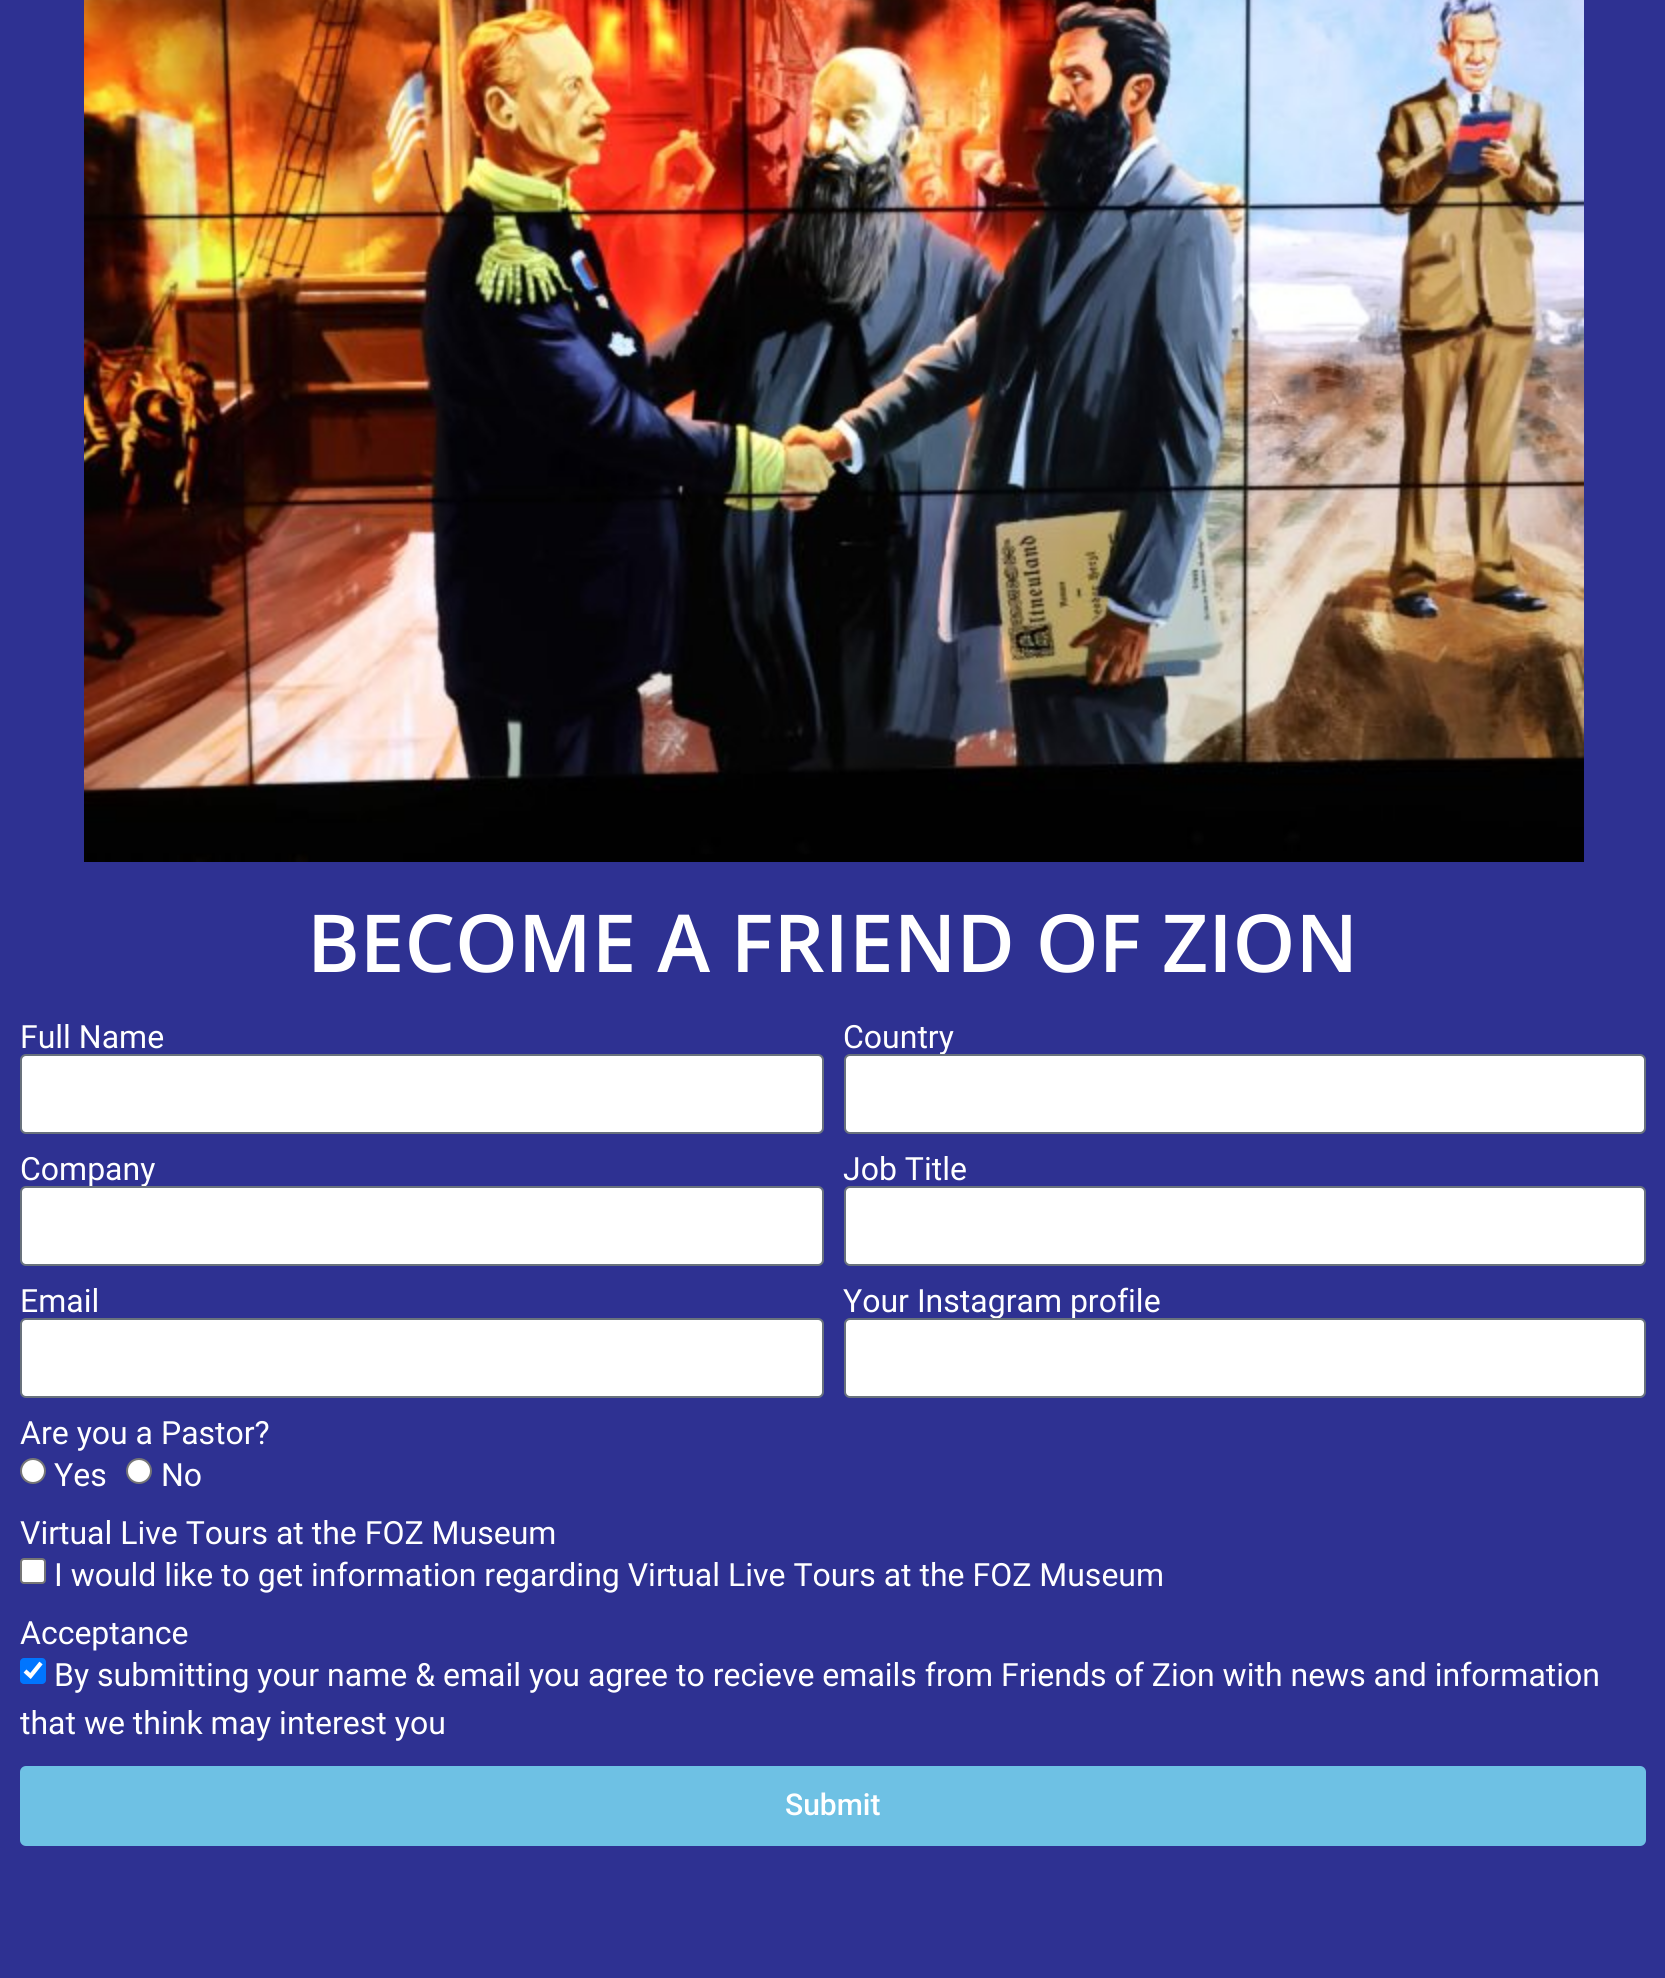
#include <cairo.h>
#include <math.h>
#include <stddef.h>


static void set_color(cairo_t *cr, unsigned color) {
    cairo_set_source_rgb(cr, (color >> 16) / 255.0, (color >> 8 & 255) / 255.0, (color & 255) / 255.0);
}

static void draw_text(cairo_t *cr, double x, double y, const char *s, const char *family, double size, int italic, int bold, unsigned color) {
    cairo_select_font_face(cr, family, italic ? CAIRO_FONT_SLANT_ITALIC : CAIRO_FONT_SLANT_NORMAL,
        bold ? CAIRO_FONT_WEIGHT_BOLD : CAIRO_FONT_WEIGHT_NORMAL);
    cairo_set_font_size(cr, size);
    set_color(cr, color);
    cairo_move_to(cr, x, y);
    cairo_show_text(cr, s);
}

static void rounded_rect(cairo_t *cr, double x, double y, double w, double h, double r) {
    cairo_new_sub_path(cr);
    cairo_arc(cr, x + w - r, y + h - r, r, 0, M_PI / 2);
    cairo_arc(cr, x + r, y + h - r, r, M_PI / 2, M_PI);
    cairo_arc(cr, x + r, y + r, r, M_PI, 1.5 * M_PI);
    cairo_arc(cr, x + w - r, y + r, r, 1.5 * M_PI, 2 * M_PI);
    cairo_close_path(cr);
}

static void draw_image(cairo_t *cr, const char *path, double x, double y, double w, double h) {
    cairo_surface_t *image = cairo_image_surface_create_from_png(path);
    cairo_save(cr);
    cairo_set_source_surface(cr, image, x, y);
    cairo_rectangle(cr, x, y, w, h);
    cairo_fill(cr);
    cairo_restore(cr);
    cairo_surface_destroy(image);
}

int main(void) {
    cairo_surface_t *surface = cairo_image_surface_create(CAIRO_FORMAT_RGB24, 1665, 1978);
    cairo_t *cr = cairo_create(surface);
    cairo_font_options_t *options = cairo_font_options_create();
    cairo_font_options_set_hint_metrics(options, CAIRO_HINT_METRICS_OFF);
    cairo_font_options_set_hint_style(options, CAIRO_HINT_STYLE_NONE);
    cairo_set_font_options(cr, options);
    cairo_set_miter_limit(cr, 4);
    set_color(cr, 0x2E3192);
    cairo_paint(cr);
    draw_image(cr, "assets/img1.png", 84, 0, 1500, 862);
    draw_text(cr, 307, 972, "BECOME A FRIEND OF ZION", "Open Sans SemiBold", 80, 0, 0, 0xFFFFFF);
    draw_text(cr, 20, 1048, "Full Name", "Roboto", 32, 0, 0, 0xFFFFFF);
    rounded_rect(cr, 21, 1055, 802, 78, 5);
    cairo_fill_preserve(cr);
    set_color(cr, 0x69727D);
    cairo_stroke(cr);
    draw_text(cr, 843, 1048, "Country", "Roboto", 32, 0, 0, 0xFFFFFF);
    rounded_rect(cr, 845, 1055, 800, 78, 5);
    cairo_fill_preserve(cr);
    set_color(cr, 0x69727D);
    cairo_stroke(cr);
    draw_text(cr, 20, 1180, "Company", "Roboto", 32, 0, 0, 0xFFFFFF);
    rounded_rect(cr, 21, 1187, 802, 78, 5);
    cairo_fill_preserve(cr);
    set_color(cr, 0x69727D);
    cairo_stroke(cr);
    draw_text(cr, 843, 1180, "Job Title", "Roboto", 32, 0, 0, 0xFFFFFF);
    rounded_rect(cr, 845, 1187, 800, 78, 5);
    cairo_fill_preserve(cr);
    set_color(cr, 0x69727D);
    cairo_stroke(cr);
    draw_text(cr, 20, 1312, "Email", "Roboto", 32, 0, 0, 0xFFFFFF);
    rounded_rect(cr, 21, 1319, 802, 78, 5);
    cairo_fill_preserve(cr);
    set_color(cr, 0x69727D);
    cairo_stroke(cr);
    draw_text(cr, 843, 1312, "Your Instagram profile", "Roboto", 32, 0, 0, 0xFFFFFF);
    rounded_rect(cr, 845, 1319, 800, 78, 5);
    cairo_fill_preserve(cr);
    set_color(cr, 0x69727D);
    cairo_stroke(cr);
    draw_text(cr, 20, 1444, "Are you a Pastor?", "Roboto", 32, 0, 0, 0xFFFFFF);
    cairo_new_path(cr);
    cairo_arc(cr, 33, 1471, 12, 0, 2 * M_PI);
    cairo_fill_preserve(cr);
    set_color(cr, 0x767676);
    cairo_stroke(cr);
    draw_text(cr, 54, 1486, "Yes", "Roboto", 32, 0, 0, 0xFFFFFF);
    cairo_new_path(cr);
    cairo_arc(cr, 139, 1471, 12, 0, 2 * M_PI);
    cairo_fill_preserve(cr);
    set_color(cr, 0x767676);
    cairo_stroke(cr);
    draw_text(cr, 161, 1486, "No", "Roboto", 32, 0, 0, 0xFFFFFF);
    draw_text(cr, 20, 1544, "Virtual Live Tours at the FOZ Museum", "Roboto", 32, 0, 0, 0xFFFFFF);
    rounded_rect(cr, 21, 1559, 24, 24, 3);
    cairo_fill_preserve(cr);
    set_color(cr, 0x767676);
    cairo_stroke(cr);
    draw_text(cr, 54, 1586, "I would like to get information regarding Virtual Live Tours at the FOZ Museum", "Roboto", 32, 0, 0, 0xFFFFFF);
    draw_text(cr, 20, 1644, "Acceptance", "Roboto", 32, 0, 0, 0xFFFFFF);
    set_color(cr, 0x0075FF);
    rounded_rect(cr, 20, 1658, 26, 26, 4);
    cairo_fill(cr);
    cairo_new_path(cr);
    cairo_move_to(cr, 25, 1671);
    cairo_line_to(cr, 30.5, 1676);
    cairo_line_to(cr, 41, 1663);
    set_color(cr, 0xFFFFFF);
    cairo_set_line_width(cr, 4.2);
    cairo_stroke(cr);
    draw_text(cr, 54, 1686, "By submitting your name & email you agree to recieve emails from Friends of Zion with news and information", "Roboto", 32, 0, 0, 0xFFFFFF);
    draw_text(cr, 20, 1734, "that we think may interest you", "Roboto", 32, 0, 0, 0xFFFFFF);
    set_color(cr, 0x6EC1E4);
    rounded_rect(cr, 20, 1766, 1626, 80, 6);
    cairo_fill(cr);
    draw_text(cr, 785, 1815, "Submit", "Roboto Medium", 30, 0, 0, 0xFFFFFF);
    cairo_surface_write_to_png(surface, "output.png");
    cairo_font_options_destroy(options);
    cairo_destroy(cr);
    cairo_surface_destroy(surface);
    return 0;
}
